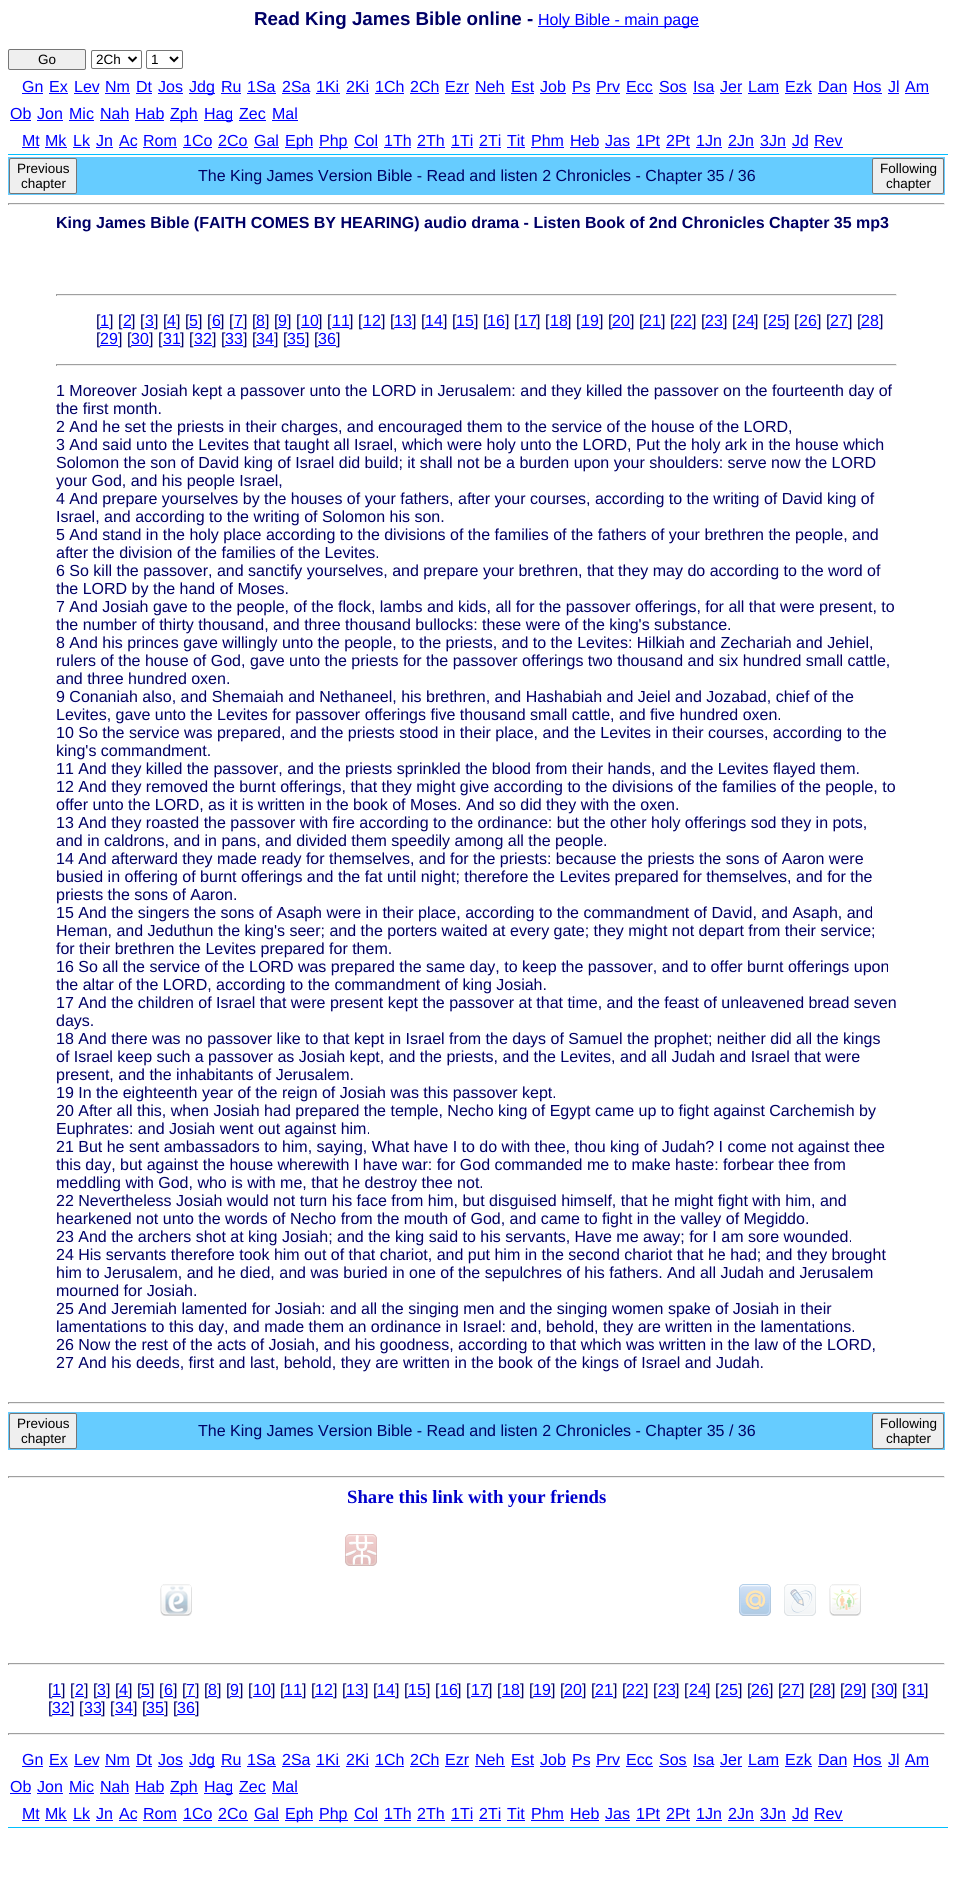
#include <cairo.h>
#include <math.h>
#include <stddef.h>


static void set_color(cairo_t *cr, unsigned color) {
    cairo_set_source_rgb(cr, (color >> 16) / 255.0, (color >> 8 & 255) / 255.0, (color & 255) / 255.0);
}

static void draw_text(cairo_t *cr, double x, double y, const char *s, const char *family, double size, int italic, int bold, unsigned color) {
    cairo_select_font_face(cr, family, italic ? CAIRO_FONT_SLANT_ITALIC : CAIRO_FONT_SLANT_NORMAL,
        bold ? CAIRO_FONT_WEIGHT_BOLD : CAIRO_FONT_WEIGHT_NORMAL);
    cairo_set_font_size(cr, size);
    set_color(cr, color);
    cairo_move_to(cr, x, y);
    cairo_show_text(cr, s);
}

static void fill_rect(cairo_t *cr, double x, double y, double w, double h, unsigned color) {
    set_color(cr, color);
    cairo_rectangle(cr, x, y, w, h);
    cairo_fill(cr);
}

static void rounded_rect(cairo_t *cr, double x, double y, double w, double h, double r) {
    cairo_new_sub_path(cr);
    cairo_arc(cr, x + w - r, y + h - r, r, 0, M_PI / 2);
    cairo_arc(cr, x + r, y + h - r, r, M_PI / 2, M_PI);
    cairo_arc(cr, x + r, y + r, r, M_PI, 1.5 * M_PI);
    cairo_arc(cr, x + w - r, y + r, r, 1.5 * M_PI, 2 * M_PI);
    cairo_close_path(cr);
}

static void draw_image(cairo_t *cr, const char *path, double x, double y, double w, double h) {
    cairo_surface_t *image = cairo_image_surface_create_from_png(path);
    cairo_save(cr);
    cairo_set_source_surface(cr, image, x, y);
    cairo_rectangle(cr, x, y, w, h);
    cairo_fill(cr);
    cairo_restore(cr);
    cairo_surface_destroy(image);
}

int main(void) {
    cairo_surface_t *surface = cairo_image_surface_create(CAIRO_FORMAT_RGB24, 953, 1896);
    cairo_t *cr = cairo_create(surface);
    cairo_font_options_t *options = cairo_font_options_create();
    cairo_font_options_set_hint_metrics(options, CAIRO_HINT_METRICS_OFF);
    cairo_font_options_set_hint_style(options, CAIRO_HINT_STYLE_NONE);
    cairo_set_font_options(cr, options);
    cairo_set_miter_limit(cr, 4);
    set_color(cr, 0xFFFFFF);
    cairo_paint(cr);
    draw_text(cr, 254, 25, "Read King James Bible online -", "Liberation Sans", 18.75, 0, 1, 0x000066);
    fill_rect(cr, 538, 26, 161, 1, 0x0000FF);
    draw_text(cr, 538, 25, "Holy Bible - main page", "Liberation Sans", 16, 0, 0, 0x0000FF);
    set_color(cr, 0xEFEFEF);
    rounded_rect(cr, 8.5, 49.5, 77, 20, 1.5);
    cairo_fill_preserve(cr);
    set_color(cr, 0x767676);
    cairo_set_line_width(cr, 1);
    cairo_stroke(cr);
    draw_text(cr, 38, 64, "Go", "Liberation Sans", 13.5, 0, 0, 0x000000);
    rounded_rect(cr, 91.5, 50.5, 50, 18, 1.5);
    set_color(cr, 0x767676);
    cairo_stroke(cr);
    cairo_new_path(cr);
    cairo_move_to(cr, 128.5, 57);
    cairo_line_to(cr, 132.5, 61);
    cairo_line_to(cr, 136.5, 57);
    set_color(cr, 0x000000);
    cairo_set_line_width(cr, 2);
    cairo_stroke(cr);
    draw_text(cr, 96, 64, "2Ch", "Liberation Sans", 13.5, 0, 0, 0x000000);
    rounded_rect(cr, 146.5, 50.5, 36, 18, 1.5);
    set_color(cr, 0x767676);
    cairo_set_line_width(cr, 1);
    cairo_stroke(cr);
    cairo_new_path(cr);
    cairo_move_to(cr, 170, 57);
    cairo_line_to(cr, 174, 61);
    cairo_line_to(cr, 178, 57);
    set_color(cr, 0x000000);
    cairo_set_line_width(cr, 2);
    cairo_stroke(cr);
    draw_text(cr, 151, 64, "1", "Liberation Sans", 13.5, 0, 0, 0x000000);
    fill_rect(cr, 8, 154, 940, 1, 0x00BFFF);
    draw_text(cr, 22, 92, "Gn", "Liberation Sans", 16, 0, 0, 0x0000FF);
    fill_rect(cr, 22, 93, 21, 1, 0x0000FF);
    draw_text(cr, 49, 92, "Ex", "Liberation Sans", 16, 0, 0, 0x0000FF);
    fill_rect(cr, 49, 93, 19, 1, 0x0000FF);
    draw_text(cr, 74, 92, "Lev", "Liberation Sans", 16, 0, 0, 0x0000FF);
    fill_rect(cr, 74, 93, 25, 1, 0x0000FF);
    draw_text(cr, 105, 92, "Nm", "Liberation Sans", 16, 0, 0, 0x0000FF);
    fill_rect(cr, 105, 93, 25, 1, 0x0000FF);
    draw_text(cr, 136, 92, "Dt", "Liberation Sans", 16, 0, 0, 0x0000FF);
    fill_rect(cr, 136, 93, 16, 1, 0x0000FF);
    draw_text(cr, 158, 92, "Jos", "Liberation Sans", 16, 0, 0, 0x0000FF);
    fill_rect(cr, 158, 93, 25, 1, 0x0000FF);
    fill_rect(cr, 189, 93, 26, 1, 0x0000FF);
    draw_text(cr, 189, 92, "Jdg", "Liberation Sans", 16, 0, 0, 0x0000FF);
    draw_text(cr, 221, 92, "Ru", "Liberation Sans", 16, 0, 0, 0x0000FF);
    fill_rect(cr, 221, 93, 20, 1, 0x0000FF);
    draw_text(cr, 247, 92, "1Sa", "Liberation Sans", 16, 0, 0, 0x0000FF);
    fill_rect(cr, 247, 93, 29, 1, 0x0000FF);
    draw_text(cr, 282, 92, "2Sa", "Liberation Sans", 16, 0, 0, 0x0000FF);
    fill_rect(cr, 282, 93, 28, 1, 0x0000FF);
    draw_text(cr, 316, 92, "1Ki", "Liberation Sans", 16, 0, 0, 0x0000FF);
    fill_rect(cr, 316, 93, 24, 1, 0x0000FF);
    draw_text(cr, 346, 92, "2Ki", "Liberation Sans", 16, 0, 0, 0x0000FF);
    fill_rect(cr, 346, 93, 23, 1, 0x0000FF);
    draw_text(cr, 375, 92, "1Ch", "Liberation Sans", 16, 0, 0, 0x0000FF);
    fill_rect(cr, 375, 93, 29, 1, 0x0000FF);
    draw_text(cr, 410, 92, "2Ch", "Liberation Sans", 16, 0, 0, 0x0000FF);
    fill_rect(cr, 410, 93, 29, 1, 0x0000FF);
    draw_text(cr, 445, 92, "Ezr", "Liberation Sans", 16, 0, 0, 0x0000FF);
    fill_rect(cr, 445, 93, 24, 1, 0x0000FF);
    draw_text(cr, 475, 92, "Neh", "Liberation Sans", 16, 0, 0, 0x0000FF);
    fill_rect(cr, 475, 93, 30, 1, 0x0000FF);
    draw_text(cr, 511, 92, "Est", "Liberation Sans", 16, 0, 0, 0x0000FF);
    fill_rect(cr, 511, 93, 23, 1, 0x0000FF);
    draw_text(cr, 540, 92, "Job", "Liberation Sans", 16, 0, 0, 0x0000FF);
    fill_rect(cr, 540, 93, 26, 1, 0x0000FF);
    draw_text(cr, 572, 92, "Ps", "Liberation Sans", 16, 0, 0, 0x0000FF);
    fill_rect(cr, 572, 93, 18, 1, 0x0000FF);
    draw_text(cr, 596, 92, "Prv", "Liberation Sans", 16, 0, 0, 0x0000FF);
    fill_rect(cr, 596, 93, 24, 1, 0x0000FF);
    draw_text(cr, 626, 92, "Ecc", "Liberation Sans", 16, 0, 0, 0x0000FF);
    fill_rect(cr, 626, 93, 27, 1, 0x0000FF);
    draw_text(cr, 659, 92, "Sos", "Liberation Sans", 16, 0, 0, 0x0000FF);
    fill_rect(cr, 659, 93, 28, 1, 0x0000FF);
    draw_text(cr, 693, 92, "Isa", "Liberation Sans", 16, 0, 0, 0x0000FF);
    fill_rect(cr, 693, 93, 21, 1, 0x0000FF);
    draw_text(cr, 720, 92, "Jer", "Liberation Sans", 16, 0, 0, 0x0000FF);
    fill_rect(cr, 720, 93, 22, 1, 0x0000FF);
    draw_text(cr, 748, 92, "Lam", "Liberation Sans", 16, 0, 0, 0x0000FF);
    fill_rect(cr, 748, 93, 31, 1, 0x0000FF);
    draw_text(cr, 785, 92, "Ezk", "Liberation Sans", 16, 0, 0, 0x0000FF);
    fill_rect(cr, 785, 93, 27, 1, 0x0000FF);
    draw_text(cr, 818, 92, "Dan", "Liberation Sans", 16, 0, 0, 0x0000FF);
    fill_rect(cr, 818, 93, 29, 1, 0x0000FF);
    draw_text(cr, 853, 92, "Hos", "Liberation Sans", 16, 0, 0, 0x0000FF);
    fill_rect(cr, 853, 93, 29, 1, 0x0000FF);
    draw_text(cr, 888, 92, "Jl", "Liberation Sans", 16, 0, 0, 0x0000FF);
    fill_rect(cr, 888, 93, 11, 1, 0x0000FF);
    draw_text(cr, 905, 92, "Am", "Liberation Sans", 16, 0, 0, 0x0000FF);
    fill_rect(cr, 905, 93, 24, 1, 0x0000FF);
    draw_text(cr, 10, 119, "Ob", "Liberation Sans", 16, 0, 0, 0x0000FF);
    fill_rect(cr, 10, 120, 21, 1, 0x0000FF);
    draw_text(cr, 37, 119, "Jon", "Liberation Sans", 16, 0, 0, 0x0000FF);
    fill_rect(cr, 37, 120, 26, 1, 0x0000FF);
    draw_text(cr, 69, 119, "Mic", "Liberation Sans", 16, 0, 0, 0x0000FF);
    fill_rect(cr, 69, 120, 25, 1, 0x0000FF);
    draw_text(cr, 100, 119, "Nah", "Liberation Sans", 16, 0, 0, 0x0000FF);
    fill_rect(cr, 100, 120, 29, 1, 0x0000FF);
    draw_text(cr, 135, 119, "Hab", "Liberation Sans", 16, 0, 0, 0x0000FF);
    fill_rect(cr, 135, 120, 29, 1, 0x0000FF);
    fill_rect(cr, 170, 120, 28, 1, 0x0000FF);
    draw_text(cr, 170, 119, "Zph", "Liberation Sans", 16, 0, 0, 0x0000FF);
    fill_rect(cr, 204, 120, 29, 1, 0x0000FF);
    draw_text(cr, 204, 119, "Hag", "Liberation Sans", 16, 0, 0, 0x0000FF);
    draw_text(cr, 239, 119, "Zec", "Liberation Sans", 16, 0, 0, 0x0000FF);
    fill_rect(cr, 239, 120, 27, 1, 0x0000FF);
    draw_text(cr, 272, 119, "Mal", "Liberation Sans", 16, 0, 0, 0x0000FF);
    fill_rect(cr, 272, 120, 26, 1, 0x0000FF);
    draw_text(cr, 22, 146, "Mt", "Liberation Sans", 16, 0, 0, 0x0000FF);
    fill_rect(cr, 22, 147, 17, 1, 0x0000FF);
    draw_text(cr, 45, 146, "Mk", "Liberation Sans", 16, 0, 0, 0x0000FF);
    fill_rect(cr, 45, 147, 22, 1, 0x0000FF);
    draw_text(cr, 73, 146, "Lk", "Liberation Sans", 16, 0, 0, 0x0000FF);
    fill_rect(cr, 73, 147, 17, 1, 0x0000FF);
    draw_text(cr, 96, 146, "Jn", "Liberation Sans", 16, 0, 0, 0x0000FF);
    fill_rect(cr, 96, 147, 17, 1, 0x0000FF);
    draw_text(cr, 119, 146, "Ac", "Liberation Sans", 16, 0, 0, 0x0000FF);
    fill_rect(cr, 119, 147, 18, 1, 0x0000FF);
    draw_text(cr, 143, 146, "Rom", "Liberation Sans", 16, 0, 0, 0x0000FF);
    fill_rect(cr, 143, 147, 34, 1, 0x0000FF);
    draw_text(cr, 183, 146, "1Co", "Liberation Sans", 16, 0, 0, 0x0000FF);
    fill_rect(cr, 183, 147, 29, 1, 0x0000FF);
    draw_text(cr, 218, 146, "2Co", "Liberation Sans", 16, 0, 0, 0x0000FF);
    fill_rect(cr, 218, 147, 30, 1, 0x0000FF);
    draw_text(cr, 254, 146, "Gal", "Liberation Sans", 16, 0, 0, 0x0000FF);
    fill_rect(cr, 254, 147, 25, 1, 0x0000FF);
    fill_rect(cr, 285, 147, 28, 1, 0x0000FF);
    draw_text(cr, 285, 146, "Eph", "Liberation Sans", 16, 0, 0, 0x0000FF);
    fill_rect(cr, 319, 147, 29, 1, 0x0000FF);
    draw_text(cr, 319, 146, "Php", "Liberation Sans", 16, 0, 0, 0x0000FF);
    draw_text(cr, 354, 146, "Col", "Liberation Sans", 16, 0, 0, 0x0000FF);
    fill_rect(cr, 354, 147, 24, 1, 0x0000FF);
    draw_text(cr, 384, 146, "1Th", "Liberation Sans", 16, 0, 0, 0x0000FF);
    fill_rect(cr, 384, 147, 27, 1, 0x0000FF);
    draw_text(cr, 417, 146, "2Th", "Liberation Sans", 16, 0, 0, 0x0000FF);
    fill_rect(cr, 417, 147, 28, 1, 0x0000FF);
    draw_text(cr, 451, 146, "1Ti", "Liberation Sans", 16, 0, 0, 0x0000FF);
    fill_rect(cr, 451, 147, 22, 1, 0x0000FF);
    draw_text(cr, 479, 146, "2Ti", "Liberation Sans", 16, 0, 0, 0x0000FF);
    fill_rect(cr, 479, 147, 22, 1, 0x0000FF);
    draw_text(cr, 507, 146, "Tit", "Liberation Sans", 16, 0, 0, 0x0000FF);
    fill_rect(cr, 507, 147, 18, 1, 0x0000FF);
    draw_text(cr, 531, 146, "Phm", "Liberation Sans", 16, 0, 0, 0x0000FF);
    fill_rect(cr, 531, 147, 33, 1, 0x0000FF);
    draw_text(cr, 570, 146, "Heb", "Liberation Sans", 16, 0, 0, 0x0000FF);
    fill_rect(cr, 570, 147, 29, 1, 0x0000FF);
    draw_text(cr, 605, 146, "Jas", "Liberation Sans", 16, 0, 0, 0x0000FF);
    fill_rect(cr, 605, 147, 25, 1, 0x0000FF);
    draw_text(cr, 636, 146, "1Pt", "Liberation Sans", 16, 0, 0, 0x0000FF);
    fill_rect(cr, 636, 147, 24, 1, 0x0000FF);
    draw_text(cr, 666, 146, "2Pt", "Liberation Sans", 16, 0, 0, 0x0000FF);
    fill_rect(cr, 666, 147, 24, 1, 0x0000FF);
    draw_text(cr, 696, 146, "1Jn", "Liberation Sans", 16, 0, 0, 0x0000FF);
    fill_rect(cr, 696, 147, 26, 1, 0x0000FF);
    draw_text(cr, 728, 146, "2Jn", "Liberation Sans", 16, 0, 0, 0x0000FF);
    fill_rect(cr, 728, 147, 26, 1, 0x0000FF);
    draw_text(cr, 760, 146, "3Jn", "Liberation Sans", 16, 0, 0, 0x0000FF);
    fill_rect(cr, 760, 147, 26, 1, 0x0000FF);
    draw_text(cr, 792, 146, "Jd", "Liberation Sans", 16, 0, 0, 0x0000FF);
    fill_rect(cr, 792, 147, 16, 1, 0x0000FF);
    draw_text(cr, 814, 146, "Rev", "Liberation Sans", 16, 0, 0, 0x0000FF);
    fill_rect(cr, 814, 147, 29, 1, 0x0000FF);
    fill_rect(cr, 8, 157, 937, 38, 0x66CCFF);
    set_color(cr, 0xEFEFEF);
    rounded_rect(cr, 9.5, 158.5, 67, 35, 1.5);
    cairo_fill_preserve(cr);
    set_color(cr, 0x767676);
    cairo_set_line_width(cr, 1);
    cairo_stroke(cr);
    draw_text(cr, 17, 173, "Previous", "Liberation Sans", 13.5, 0, 0, 0x000000);
    draw_text(cr, 21, 188, "chapter", "Liberation Sans", 13.5, 0, 0, 0x000000);
    draw_text(cr, 198, 181, "The King James Version Bible - Read and listen 2 Chronicles - Chapter 35 / 36", "Liberation Sans", 16, 0, 0, 0x000066);
    set_color(cr, 0xEFEFEF);
    rounded_rect(cr, 872.5, 158.5, 71, 35, 1.5);
    cairo_fill_preserve(cr);
    set_color(cr, 0x767676);
    cairo_stroke(cr);
    draw_text(cr, 880, 173, "Following", "Liberation Sans", 13.5, 0, 0, 0x000000);
    draw_text(cr, 886, 188, "chapter", "Liberation Sans", 13.5, 0, 0, 0x000000);
    fill_rect(cr, 8, 203, 937, 1, 0x9F9F9F);
    fill_rect(cr, 944, 203, 1, 2, 0xEEEEEE);
    fill_rect(cr, 8, 204, 937, 1, 0xEEEEEE);
    fill_rect(cr, 8, 203, 1, 2, 0x9F9F9F);
    draw_text(cr, 56, 228, "King James Bible (FAITH COMES BY HEARING) audio drama - Listen Book of 2nd Chronicles Chapter 35 mp3", "Liberation Sans", 16, 0, 1, 0x000066);
    fill_rect(cr, 56, 294, 841, 1, 0x9F9F9F);
    fill_rect(cr, 896, 294, 1, 2, 0xEEEEEE);
    fill_rect(cr, 56, 295, 841, 1, 0xEEEEEE);
    fill_rect(cr, 56, 294, 1, 2, 0x9F9F9F);
    draw_text(cr, 96, 326, "[", "Liberation Sans", 16, 0, 0, 0x000066);
    draw_text(cr, 100, 326, "1", "Liberation Sans", 16, 0, 0, 0x0000FF);
    fill_rect(cr, 100, 327, 9, 1, 0x0000FF);
    draw_text(cr, 109, 326, "] [", "Liberation Sans", 16, 0, 0, 0x000066);
    draw_text(cr, 123, 326, "2", "Liberation Sans", 16, 0, 0, 0x0000FF);
    fill_rect(cr, 123, 327, 8, 1, 0x0000FF);
    draw_text(cr, 131, 326, "] [", "Liberation Sans", 16, 0, 0, 0x000066);
    draw_text(cr, 145, 326, "3", "Liberation Sans", 16, 0, 0, 0x0000FF);
    fill_rect(cr, 145, 327, 9, 1, 0x0000FF);
    draw_text(cr, 154, 326, "] [", "Liberation Sans", 16, 0, 0, 0x000066);
    draw_text(cr, 167, 326, "4", "Liberation Sans", 16, 0, 0, 0x0000FF);
    fill_rect(cr, 167, 327, 9, 1, 0x0000FF);
    draw_text(cr, 176, 326, "] [", "Liberation Sans", 16, 0, 0, 0x000066);
    draw_text(cr, 189, 326, "5", "Liberation Sans", 16, 0, 0, 0x0000FF);
    fill_rect(cr, 189, 327, 9, 1, 0x0000FF);
    draw_text(cr, 198, 326, "] [", "Liberation Sans", 16, 0, 0, 0x000066);
    draw_text(cr, 212, 326, "6", "Liberation Sans", 16, 0, 0, 0x0000FF);
    fill_rect(cr, 212, 327, 8, 1, 0x0000FF);
    draw_text(cr, 220, 326, "] [", "Liberation Sans", 16, 0, 0, 0x000066);
    draw_text(cr, 234, 326, "7", "Liberation Sans", 16, 0, 0, 0x0000FF);
    fill_rect(cr, 234, 327, 9, 1, 0x0000FF);
    draw_text(cr, 243, 326, "] [", "Liberation Sans", 16, 0, 0, 0x000066);
    draw_text(cr, 256, 326, "8", "Liberation Sans", 16, 0, 0, 0x0000FF);
    fill_rect(cr, 256, 327, 9, 1, 0x0000FF);
    draw_text(cr, 265, 326, "] [", "Liberation Sans", 16, 0, 0, 0x000066);
    draw_text(cr, 278, 326, "9", "Liberation Sans", 16, 0, 0, 0x0000FF);
    fill_rect(cr, 278, 327, 9, 1, 0x0000FF);
    draw_text(cr, 287, 326, "] [", "Liberation Sans", 16, 0, 0, 0x000066);
    draw_text(cr, 301, 326, "10", "Liberation Sans", 16, 0, 0, 0x0000FF);
    fill_rect(cr, 301, 327, 17, 1, 0x0000FF);
    draw_text(cr, 318, 326, "] [", "Liberation Sans", 16, 0, 0, 0x000066);
    draw_text(cr, 332, 326, "11", "Liberation Sans", 16, 0, 0, 0x0000FF);
    fill_rect(cr, 332, 327, 17, 1, 0x0000FF);
    draw_text(cr, 349, 326, "] [", "Liberation Sans", 16, 0, 0, 0x000066);
    draw_text(cr, 363, 326, "12", "Liberation Sans", 16, 0, 0, 0x0000FF);
    fill_rect(cr, 363, 327, 18, 1, 0x0000FF);
    draw_text(cr, 381, 326, "] [", "Liberation Sans", 16, 0, 0, 0x000066);
    draw_text(cr, 394, 326, "13", "Liberation Sans", 16, 0, 0, 0x0000FF);
    fill_rect(cr, 394, 327, 18, 1, 0x0000FF);
    draw_text(cr, 412, 326, "] [", "Liberation Sans", 16, 0, 0, 0x000066);
    draw_text(cr, 425, 326, "14", "Liberation Sans", 16, 0, 0, 0x0000FF);
    fill_rect(cr, 425, 327, 18, 1, 0x0000FF);
    draw_text(cr, 443, 326, "] [", "Liberation Sans", 16, 0, 0, 0x000066);
    draw_text(cr, 456, 326, "15", "Liberation Sans", 16, 0, 0, 0x0000FF);
    fill_rect(cr, 456, 327, 18, 1, 0x0000FF);
    draw_text(cr, 474, 326, "] [", "Liberation Sans", 16, 0, 0, 0x000066);
    draw_text(cr, 487, 326, "16", "Liberation Sans", 16, 0, 0, 0x0000FF);
    fill_rect(cr, 487, 327, 18, 1, 0x0000FF);
    draw_text(cr, 505, 326, "] [", "Liberation Sans", 16, 0, 0, 0x000066);
    draw_text(cr, 519, 326, "17", "Liberation Sans", 16, 0, 0, 0x0000FF);
    fill_rect(cr, 519, 327, 17, 1, 0x0000FF);
    draw_text(cr, 536, 326, "] [", "Liberation Sans", 16, 0, 0, 0x000066);
    draw_text(cr, 550, 326, "18", "Liberation Sans", 16, 0, 0, 0x0000FF);
    fill_rect(cr, 550, 327, 17, 1, 0x0000FF);
    draw_text(cr, 567, 326, "] [", "Liberation Sans", 16, 0, 0, 0x000066);
    draw_text(cr, 581, 326, "19", "Liberation Sans", 16, 0, 0, 0x0000FF);
    fill_rect(cr, 581, 327, 18, 1, 0x0000FF);
    draw_text(cr, 599, 326, "] [", "Liberation Sans", 16, 0, 0, 0x000066);
    draw_text(cr, 612, 326, "20", "Liberation Sans", 16, 0, 0, 0x0000FF);
    fill_rect(cr, 612, 327, 18, 1, 0x0000FF);
    draw_text(cr, 630, 326, "] [", "Liberation Sans", 16, 0, 0, 0x000066);
    draw_text(cr, 643, 326, "21", "Liberation Sans", 16, 0, 0, 0x0000FF);
    fill_rect(cr, 643, 327, 18, 1, 0x0000FF);
    draw_text(cr, 661, 326, "] [", "Liberation Sans", 16, 0, 0, 0x000066);
    draw_text(cr, 674, 326, "22", "Liberation Sans", 16, 0, 0, 0x0000FF);
    fill_rect(cr, 674, 327, 18, 1, 0x0000FF);
    draw_text(cr, 692, 326, "] [", "Liberation Sans", 16, 0, 0, 0x000066);
    draw_text(cr, 705, 326, "23", "Liberation Sans", 16, 0, 0, 0x0000FF);
    fill_rect(cr, 705, 327, 18, 1, 0x0000FF);
    draw_text(cr, 723, 326, "] [", "Liberation Sans", 16, 0, 0, 0x000066);
    draw_text(cr, 737, 326, "24", "Liberation Sans", 16, 0, 0, 0x0000FF);
    fill_rect(cr, 737, 327, 17, 1, 0x0000FF);
    draw_text(cr, 754, 326, "] [", "Liberation Sans", 16, 0, 0, 0x000066);
    draw_text(cr, 768, 326, "25", "Liberation Sans", 16, 0, 0, 0x0000FF);
    fill_rect(cr, 768, 327, 17, 1, 0x0000FF);
    draw_text(cr, 785, 326, "] [", "Liberation Sans", 16, 0, 0, 0x000066);
    draw_text(cr, 799, 326, "26", "Liberation Sans", 16, 0, 0, 0x0000FF);
    fill_rect(cr, 799, 327, 18, 1, 0x0000FF);
    draw_text(cr, 817, 326, "] [", "Liberation Sans", 16, 0, 0, 0x000066);
    draw_text(cr, 830, 326, "27", "Liberation Sans", 16, 0, 0, 0x0000FF);
    fill_rect(cr, 830, 327, 18, 1, 0x0000FF);
    draw_text(cr, 848, 326, "] [", "Liberation Sans", 16, 0, 0, 0x000066);
    draw_text(cr, 861, 326, "28", "Liberation Sans", 16, 0, 0, 0x0000FF);
    fill_rect(cr, 861, 327, 18, 1, 0x0000FF);
    draw_text(cr, 879, 326, "]", "Liberation Sans", 16, 0, 0, 0x000066);
    draw_text(cr, 96, 344, "[", "Liberation Sans", 16, 0, 0, 0x000066);
    draw_text(cr, 100, 344, "29", "Liberation Sans", 16, 0, 0, 0x0000FF);
    fill_rect(cr, 100, 345, 18, 1, 0x0000FF);
    draw_text(cr, 118, 344, "] [", "Liberation Sans", 16, 0, 0, 0x000066);
    draw_text(cr, 131, 344, "30", "Liberation Sans", 16, 0, 0, 0x0000FF);
    fill_rect(cr, 131, 345, 18, 1, 0x0000FF);
    draw_text(cr, 149, 344, "] [", "Liberation Sans", 16, 0, 0, 0x000066);
    draw_text(cr, 163, 344, "31", "Liberation Sans", 16, 0, 0, 0x0000FF);
    fill_rect(cr, 163, 345, 17, 1, 0x0000FF);
    draw_text(cr, 180, 344, "] [", "Liberation Sans", 16, 0, 0, 0x000066);
    draw_text(cr, 194, 344, "32", "Liberation Sans", 16, 0, 0, 0x0000FF);
    fill_rect(cr, 194, 345, 18, 1, 0x0000FF);
    draw_text(cr, 212, 344, "] [", "Liberation Sans", 16, 0, 0, 0x000066);
    draw_text(cr, 225, 344, "33", "Liberation Sans", 16, 0, 0, 0x0000FF);
    fill_rect(cr, 225, 345, 18, 1, 0x0000FF);
    draw_text(cr, 243, 344, "] [", "Liberation Sans", 16, 0, 0, 0x000066);
    draw_text(cr, 256, 344, "34", "Liberation Sans", 16, 0, 0, 0x0000FF);
    fill_rect(cr, 256, 345, 18, 1, 0x0000FF);
    draw_text(cr, 274, 344, "] [", "Liberation Sans", 16, 0, 0, 0x000066);
    draw_text(cr, 287, 344, "35", "Liberation Sans", 16, 0, 0, 0x0000FF);
    fill_rect(cr, 287, 345, 18, 1, 0x0000FF);
    draw_text(cr, 305, 344, "] [", "Liberation Sans", 16, 0, 0, 0x000066);
    draw_text(cr, 318, 344, "36", "Liberation Sans", 16, 0, 0, 0x0000FF);
    fill_rect(cr, 318, 345, 18, 1, 0x0000FF);
    draw_text(cr, 336, 344, "]", "Liberation Sans", 16, 0, 0, 0x000066);
    fill_rect(cr, 56, 364, 841, 1, 0x9F9F9F);
    fill_rect(cr, 896, 364, 1, 2, 0xEEEEEE);
    fill_rect(cr, 56, 365, 841, 1, 0xEEEEEE);
    fill_rect(cr, 56, 364, 1, 2, 0x9F9F9F);
    draw_text(cr, 56, 396, "1 Moreover Josiah kept a passover unto the LORD in Jerusalem: and they killed the passover on the fourteenth day of", "Liberation Sans", 16, 0, 0, 0x000066);
    draw_text(cr, 56, 414, "the first month.", "Liberation Sans", 16, 0, 0, 0x000066);
    draw_text(cr, 56, 432, "2 And he set the priests in their charges, and encouraged them to the service of the house of the LORD,", "Liberation Sans", 16, 0, 0, 0x000066);
    draw_text(cr, 56, 450, "3 And said unto the Levites that taught all Israel, which were holy unto the LORD, Put the holy ark in the house which", "Liberation Sans", 16, 0, 0, 0x000066);
    draw_text(cr, 56, 468, "Solomon the son of David king of Israel did build; it shall not be a burden upon your shoulders: serve now the LORD", "Liberation Sans", 16, 0, 0, 0x000066);
    draw_text(cr, 56, 486, "your God, and his people Israel,", "Liberation Sans", 16, 0, 0, 0x000066);
    draw_text(cr, 56, 504, "4 And prepare yourselves by the houses of your fathers, after your courses, according to the writing of David king of", "Liberation Sans", 16, 0, 0, 0x000066);
    draw_text(cr, 56, 522, "Israel, and according to the writing of Solomon his son.", "Liberation Sans", 16, 0, 0, 0x000066);
    draw_text(cr, 56, 540, "5 And stand in the holy place according to the divisions of the families of the fathers of your brethren the people, and", "Liberation Sans", 16, 0, 0, 0x000066);
    draw_text(cr, 56, 558, "after the division of the families of the Levites.", "Liberation Sans", 16, 0, 0, 0x000066);
    draw_text(cr, 56, 576, "6 So kill the passover, and sanctify yourselves, and prepare your brethren, that they may do according to the word of", "Liberation Sans", 16, 0, 0, 0x000066);
    draw_text(cr, 56, 594, "the LORD by the hand of Moses.", "Liberation Sans", 16, 0, 0, 0x000066);
    draw_text(cr, 56, 612, "7 And Josiah gave to the people, of the flock, lambs and kids, all for the passover offerings, for all that were present, to", "Liberation Sans", 16, 0, 0, 0x000066);
    draw_text(cr, 56, 630, "the number of thirty thousand, and three thousand bullocks: these were of the king's substance.", "Liberation Sans", 16, 0, 0, 0x000066);
    draw_text(cr, 56, 648, "8 And his princes gave willingly unto the people, to the priests, and to the Levites: Hilkiah and Zechariah and Jehiel,", "Liberation Sans", 16, 0, 0, 0x000066);
    draw_text(cr, 56, 666, "rulers of the house of God, gave unto the priests for the passover offerings two thousand and six hundred small cattle,", "Liberation Sans", 16, 0, 0, 0x000066);
    draw_text(cr, 56, 684, "and three hundred oxen.", "Liberation Sans", 16, 0, 0, 0x000066);
    draw_text(cr, 56, 702, "9 Conaniah also, and Shemaiah and Nethaneel, his brethren, and Hashabiah and Jeiel and Jozabad, chief of the", "Liberation Sans", 16, 0, 0, 0x000066);
    draw_text(cr, 56, 720, "Levites, gave unto the Levites for passover offerings five thousand small cattle, and five hundred oxen.", "Liberation Sans", 16, 0, 0, 0x000066);
    draw_text(cr, 56, 738, "10 So the service was prepared, and the priests stood in their place, and the Levites in their courses, according to the", "Liberation Sans", 16, 0, 0, 0x000066);
    draw_text(cr, 56, 756, "king's commandment.", "Liberation Sans", 16, 0, 0, 0x000066);
    draw_text(cr, 56, 774, "11 And they killed the passover, and the priests sprinkled the blood from their hands, and the Levites flayed them.", "Liberation Sans", 16, 0, 0, 0x000066);
    draw_text(cr, 56, 792, "12 And they removed the burnt offerings, that they might give according to the divisions of the families of the people, to", "Liberation Sans", 16, 0, 0, 0x000066);
    draw_text(cr, 56, 810, "offer unto the LORD, as it is written in the book of Moses. And so did they with the oxen.", "Liberation Sans", 16, 0, 0, 0x000066);
    draw_text(cr, 56, 828, "13 And they roasted the passover with fire according to the ordinance: but the other holy offerings sod they in pots,", "Liberation Sans", 16, 0, 0, 0x000066);
    draw_text(cr, 56, 846, "and in caldrons, and in pans, and divided them speedily among all the people.", "Liberation Sans", 16, 0, 0, 0x000066);
    draw_text(cr, 56, 864, "14 And afterward they made ready for themselves, and for the priests: because the priests the sons of Aaron were", "Liberation Sans", 16, 0, 0, 0x000066);
    draw_text(cr, 56, 882, "busied in offering of burnt offerings and the fat until night; therefore the Levites prepared for themselves, and for the", "Liberation Sans", 16, 0, 0, 0x000066);
    draw_text(cr, 56, 900, "priests the sons of Aaron.", "Liberation Sans", 16, 0, 0, 0x000066);
    draw_text(cr, 56, 918, "15 And the singers the sons of Asaph were in their place, according to the commandment of David, and Asaph, and", "Liberation Sans", 16, 0, 0, 0x000066);
    draw_text(cr, 56, 936, "Heman, and Jeduthun the king's seer; and the porters waited at every gate; they might not depart from their service;", "Liberation Sans", 16, 0, 0, 0x000066);
    draw_text(cr, 56, 954, "for their brethren the Levites prepared for them.", "Liberation Sans", 16, 0, 0, 0x000066);
    draw_text(cr, 56, 972, "16 So all the service of the LORD was prepared the same day, to keep the passover, and to offer burnt offerings upon", "Liberation Sans", 16, 0, 0, 0x000066);
    draw_text(cr, 56, 990, "the altar of the LORD, according to the commandment of king Josiah.", "Liberation Sans", 16, 0, 0, 0x000066);
    draw_text(cr, 56, 1008, "17 And the children of Israel that were present kept the passover at that time, and the feast of unleavened bread seven", "Liberation Sans", 16, 0, 0, 0x000066);
    draw_text(cr, 56, 1026, "days.", "Liberation Sans", 16, 0, 0, 0x000066);
    draw_text(cr, 56, 1044, "18 And there was no passover like to that kept in Israel from the days of Samuel the prophet; neither did all the kings", "Liberation Sans", 16, 0, 0, 0x000066);
    draw_text(cr, 56, 1062, "of Israel keep such a passover as Josiah kept, and the priests, and the Levites, and all Judah and Israel that were", "Liberation Sans", 16, 0, 0, 0x000066);
    draw_text(cr, 56, 1080, "present, and the inhabitants of Jerusalem.", "Liberation Sans", 16, 0, 0, 0x000066);
    draw_text(cr, 56, 1098, "19 In the eighteenth year of the reign of Josiah was this passover kept.", "Liberation Sans", 16, 0, 0, 0x000066);
    draw_text(cr, 56, 1116, "20 After all this, when Josiah had prepared the temple, Necho king of Egypt came up to fight against Carchemish by", "Liberation Sans", 16, 0, 0, 0x000066);
    draw_text(cr, 56, 1134, "Euphrates: and Josiah went out against him.", "Liberation Sans", 16, 0, 0, 0x000066);
    draw_text(cr, 56, 1152, "21 But he sent ambassadors to him, saying, What have I to do with thee, thou king of Judah? I come not against thee", "Liberation Sans", 16, 0, 0, 0x000066);
    draw_text(cr, 56, 1170, "this day, but against the house wherewith I have war: for God commanded me to make haste: forbear thee from", "Liberation Sans", 16, 0, 0, 0x000066);
    draw_text(cr, 56, 1188, "meddling with God, who is with me, that he destroy thee not.", "Liberation Sans", 16, 0, 0, 0x000066);
    draw_text(cr, 56, 1206, "22 Nevertheless Josiah would not turn his face from him, but disguised himself, that he might fight with him, and", "Liberation Sans", 16, 0, 0, 0x000066);
    draw_text(cr, 56, 1224, "hearkened not unto the words of Necho from the mouth of God, and came to fight in the valley of Megiddo.", "Liberation Sans", 16, 0, 0, 0x000066);
    draw_text(cr, 56, 1242, "23 And the archers shot at king Josiah; and the king said to his servants, Have me away; for I am sore wounded.", "Liberation Sans", 16, 0, 0, 0x000066);
    draw_text(cr, 56, 1260, "24 His servants therefore took him out of that chariot, and put him in the second chariot that he had; and they brought", "Liberation Sans", 16, 0, 0, 0x000066);
    draw_text(cr, 56, 1278, "him to Jerusalem, and he died, and was buried in one of the sepulchres of his fathers. And all Judah and Jerusalem", "Liberation Sans", 16, 0, 0, 0x000066);
    draw_text(cr, 56, 1296, "mourned for Josiah.", "Liberation Sans", 16, 0, 0, 0x000066);
    draw_text(cr, 56, 1314, "25 And Jeremiah lamented for Josiah: and all the singing men and the singing women spake of Josiah in their", "Liberation Sans", 16, 0, 0, 0x000066);
    draw_text(cr, 56, 1332, "lamentations to this day, and made them an ordinance in Israel: and, behold, they are written in the lamentations.", "Liberation Sans", 16, 0, 0, 0x000066);
    draw_text(cr, 56, 1350, "26 Now the rest of the acts of Josiah, and his goodness, according to that which was written in the law of the LORD,", "Liberation Sans", 16, 0, 0, 0x000066);
    draw_text(cr, 56, 1368, "27 And his deeds, first and last, behold, they are written in the book of the kings of Israel and Judah.", "Liberation Sans", 16, 0, 0, 0x000066);
    fill_rect(cr, 8, 1402, 937, 1, 0x9F9F9F);
    fill_rect(cr, 944, 1402, 1, 2, 0xEEEEEE);
    fill_rect(cr, 8, 1403, 937, 1, 0xEEEEEE);
    fill_rect(cr, 8, 1402, 1, 2, 0x9F9F9F);
    fill_rect(cr, 8, 1412, 937, 38, 0x66CCFF);
    set_color(cr, 0xEFEFEF);
    rounded_rect(cr, 9.5, 1413.5, 67, 35, 1.5);
    cairo_fill_preserve(cr);
    set_color(cr, 0x767676);
    cairo_stroke(cr);
    draw_text(cr, 17, 1428, "Previous", "Liberation Sans", 13.5, 0, 0, 0x000000);
    draw_text(cr, 21, 1443, "chapter", "Liberation Sans", 13.5, 0, 0, 0x000000);
    draw_text(cr, 198, 1436, "The King James Version Bible - Read and listen 2 Chronicles - Chapter 35 / 36", "Liberation Sans", 16, 0, 0, 0x000066);
    set_color(cr, 0xEFEFEF);
    rounded_rect(cr, 872.5, 1413.5, 71, 35, 1.5);
    cairo_fill_preserve(cr);
    set_color(cr, 0x767676);
    cairo_stroke(cr);
    draw_text(cr, 880, 1428, "Following", "Liberation Sans", 13.5, 0, 0, 0x000000);
    draw_text(cr, 886, 1443, "chapter", "Liberation Sans", 13.5, 0, 0, 0x000000);
    fill_rect(cr, 8, 1476, 937, 1, 0x9F9F9F);
    fill_rect(cr, 944, 1476, 1, 2, 0xEEEEEE);
    fill_rect(cr, 8, 1477, 937, 1, 0xEEEEEE);
    fill_rect(cr, 8, 1476, 1, 2, 0x9F9F9F);
    draw_text(cr, 347, 1503, "Share this link with your friends", "Liberation Serif", 18.7, 0, 1, 0x0000CD);
    draw_image(cr, "assets/img1.png", 345, 1534, 32, 32);
    draw_image(cr, "assets/img2.png", 160, 1584, 32, 32);
    draw_image(cr, "assets/img3.png", 739, 1584, 32, 32);
    draw_image(cr, "assets/img4.png", 784, 1584, 32, 32);
    draw_image(cr, "assets/img5.png", 829, 1584, 32, 32);
    fill_rect(cr, 8, 1663, 937, 1, 0x9F9F9F);
    fill_rect(cr, 944, 1663, 1, 2, 0xEEEEEE);
    fill_rect(cr, 8, 1664, 937, 1, 0xEEEEEE);
    fill_rect(cr, 8, 1663, 1, 2, 0x9F9F9F);
    draw_text(cr, 48, 1695, "[", "Liberation Sans", 16, 0, 0, 0x000066);
    draw_text(cr, 52, 1695, "1", "Liberation Sans", 16, 0, 0, 0x0000FF);
    fill_rect(cr, 52, 1696, 9, 1, 0x0000FF);
    draw_text(cr, 61, 1695, "] [", "Liberation Sans", 16, 0, 0, 0x000066);
    draw_text(cr, 75, 1695, "2", "Liberation Sans", 16, 0, 0, 0x0000FF);
    fill_rect(cr, 75, 1696, 9, 1, 0x0000FF);
    draw_text(cr, 84, 1695, "] [", "Liberation Sans", 16, 0, 0, 0x000066);
    draw_text(cr, 97, 1695, "3", "Liberation Sans", 16, 0, 0, 0x0000FF);
    fill_rect(cr, 97, 1696, 9, 1, 0x0000FF);
    draw_text(cr, 106, 1695, "] [", "Liberation Sans", 16, 0, 0, 0x000066);
    draw_text(cr, 119, 1695, "4", "Liberation Sans", 16, 0, 0, 0x0000FF);
    fill_rect(cr, 119, 1696, 9, 1, 0x0000FF);
    draw_text(cr, 128, 1695, "] [", "Liberation Sans", 16, 0, 0, 0x000066);
    draw_text(cr, 141, 1695, "5", "Liberation Sans", 16, 0, 0, 0x0000FF);
    fill_rect(cr, 141, 1696, 9, 1, 0x0000FF);
    draw_text(cr, 150, 1695, "] [", "Liberation Sans", 16, 0, 0, 0x000066);
    draw_text(cr, 164, 1695, "6", "Liberation Sans", 16, 0, 0, 0x0000FF);
    fill_rect(cr, 164, 1696, 9, 1, 0x0000FF);
    draw_text(cr, 173, 1695, "] [", "Liberation Sans", 16, 0, 0, 0x000066);
    draw_text(cr, 186, 1695, "7", "Liberation Sans", 16, 0, 0, 0x0000FF);
    fill_rect(cr, 186, 1696, 9, 1, 0x0000FF);
    draw_text(cr, 195, 1695, "] [", "Liberation Sans", 16, 0, 0, 0x000066);
    draw_text(cr, 208, 1695, "8", "Liberation Sans", 16, 0, 0, 0x0000FF);
    fill_rect(cr, 208, 1696, 9, 1, 0x0000FF);
    draw_text(cr, 217, 1695, "] [", "Liberation Sans", 16, 0, 0, 0x000066);
    draw_text(cr, 230, 1695, "9", "Liberation Sans", 16, 0, 0, 0x0000FF);
    fill_rect(cr, 230, 1696, 9, 1, 0x0000FF);
    draw_text(cr, 239, 1695, "] [", "Liberation Sans", 16, 0, 0, 0x000066);
    draw_text(cr, 253, 1695, "10", "Liberation Sans", 16, 0, 0, 0x0000FF);
    fill_rect(cr, 253, 1696, 18, 1, 0x0000FF);
    draw_text(cr, 271, 1695, "] [", "Liberation Sans", 16, 0, 0, 0x000066);
    draw_text(cr, 284, 1695, "11", "Liberation Sans", 16, 0, 0, 0x0000FF);
    fill_rect(cr, 284, 1696, 18, 1, 0x0000FF);
    draw_text(cr, 302, 1695, "] [", "Liberation Sans", 16, 0, 0, 0x000066);
    draw_text(cr, 315, 1695, "12", "Liberation Sans", 16, 0, 0, 0x0000FF);
    fill_rect(cr, 315, 1696, 18, 1, 0x0000FF);
    draw_text(cr, 333, 1695, "] [", "Liberation Sans", 16, 0, 0, 0x000066);
    draw_text(cr, 346, 1695, "13", "Liberation Sans", 16, 0, 0, 0x0000FF);
    fill_rect(cr, 346, 1696, 18, 1, 0x0000FF);
    draw_text(cr, 364, 1695, "] [", "Liberation Sans", 16, 0, 0, 0x000066);
    draw_text(cr, 377, 1695, "14", "Liberation Sans", 16, 0, 0, 0x0000FF);
    fill_rect(cr, 377, 1696, 18, 1, 0x0000FF);
    draw_text(cr, 395, 1695, "] [", "Liberation Sans", 16, 0, 0, 0x000066);
    draw_text(cr, 408, 1695, "15", "Liberation Sans", 16, 0, 0, 0x0000FF);
    fill_rect(cr, 408, 1696, 18, 1, 0x0000FF);
    draw_text(cr, 426, 1695, "] [", "Liberation Sans", 16, 0, 0, 0x000066);
    draw_text(cr, 440, 1695, "16", "Liberation Sans", 16, 0, 0, 0x0000FF);
    fill_rect(cr, 440, 1696, 17, 1, 0x0000FF);
    draw_text(cr, 457, 1695, "] [", "Liberation Sans", 16, 0, 0, 0x000066);
    draw_text(cr, 471, 1695, "17", "Liberation Sans", 16, 0, 0, 0x0000FF);
    fill_rect(cr, 471, 1696, 17, 1, 0x0000FF);
    draw_text(cr, 488, 1695, "] [", "Liberation Sans", 16, 0, 0, 0x000066);
    draw_text(cr, 502, 1695, "18", "Liberation Sans", 16, 0, 0, 0x0000FF);
    fill_rect(cr, 502, 1696, 18, 1, 0x0000FF);
    draw_text(cr, 520, 1695, "] [", "Liberation Sans", 16, 0, 0, 0x000066);
    draw_text(cr, 533, 1695, "19", "Liberation Sans", 16, 0, 0, 0x0000FF);
    fill_rect(cr, 533, 1696, 18, 1, 0x0000FF);
    draw_text(cr, 551, 1695, "] [", "Liberation Sans", 16, 0, 0, 0x000066);
    draw_text(cr, 564, 1695, "20", "Liberation Sans", 16, 0, 0, 0x0000FF);
    fill_rect(cr, 564, 1696, 18, 1, 0x0000FF);
    draw_text(cr, 582, 1695, "] [", "Liberation Sans", 16, 0, 0, 0x000066);
    draw_text(cr, 595, 1695, "21", "Liberation Sans", 16, 0, 0, 0x0000FF);
    fill_rect(cr, 595, 1696, 18, 1, 0x0000FF);
    draw_text(cr, 613, 1695, "] [", "Liberation Sans", 16, 0, 0, 0x000066);
    draw_text(cr, 626, 1695, "22", "Liberation Sans", 16, 0, 0, 0x0000FF);
    fill_rect(cr, 626, 1696, 18, 1, 0x0000FF);
    draw_text(cr, 644, 1695, "] [", "Liberation Sans", 16, 0, 0, 0x000066);
    draw_text(cr, 658, 1695, "23", "Liberation Sans", 16, 0, 0, 0x0000FF);
    fill_rect(cr, 658, 1696, 17, 1, 0x0000FF);
    draw_text(cr, 675, 1695, "] [", "Liberation Sans", 16, 0, 0, 0x000066);
    draw_text(cr, 689, 1695, "24", "Liberation Sans", 16, 0, 0, 0x0000FF);
    fill_rect(cr, 689, 1696, 17, 1, 0x0000FF);
    draw_text(cr, 706, 1695, "] [", "Liberation Sans", 16, 0, 0, 0x000066);
    draw_text(cr, 720, 1695, "25", "Liberation Sans", 16, 0, 0, 0x0000FF);
    fill_rect(cr, 720, 1696, 18, 1, 0x0000FF);
    draw_text(cr, 738, 1695, "] [", "Liberation Sans", 16, 0, 0, 0x000066);
    draw_text(cr, 751, 1695, "26", "Liberation Sans", 16, 0, 0, 0x0000FF);
    fill_rect(cr, 751, 1696, 18, 1, 0x0000FF);
    draw_text(cr, 769, 1695, "] [", "Liberation Sans", 16, 0, 0, 0x000066);
    draw_text(cr, 782, 1695, "27", "Liberation Sans", 16, 0, 0, 0x0000FF);
    fill_rect(cr, 782, 1696, 18, 1, 0x0000FF);
    draw_text(cr, 800, 1695, "] [", "Liberation Sans", 16, 0, 0, 0x000066);
    draw_text(cr, 813, 1695, "28", "Liberation Sans", 16, 0, 0, 0x0000FF);
    fill_rect(cr, 813, 1696, 18, 1, 0x0000FF);
    draw_text(cr, 831, 1695, "] [", "Liberation Sans", 16, 0, 0, 0x000066);
    draw_text(cr, 844, 1695, "29", "Liberation Sans", 16, 0, 0, 0x0000FF);
    fill_rect(cr, 844, 1696, 18, 1, 0x0000FF);
    draw_text(cr, 862, 1695, "] [", "Liberation Sans", 16, 0, 0, 0x000066);
    draw_text(cr, 876, 1695, "30", "Liberation Sans", 16, 0, 0, 0x0000FF);
    fill_rect(cr, 876, 1696, 17, 1, 0x0000FF);
    draw_text(cr, 893, 1695, "] [", "Liberation Sans", 16, 0, 0, 0x000066);
    draw_text(cr, 907, 1695, "31", "Liberation Sans", 16, 0, 0, 0x0000FF);
    fill_rect(cr, 907, 1696, 17, 1, 0x0000FF);
    draw_text(cr, 924, 1695, "]", "Liberation Sans", 16, 0, 0, 0x000066);
    draw_text(cr, 48, 1713, "[", "Liberation Sans", 16, 0, 0, 0x000066);
    draw_text(cr, 52, 1713, "32", "Liberation Sans", 16, 0, 0, 0x0000FF);
    fill_rect(cr, 52, 1714, 18, 1, 0x0000FF);
    draw_text(cr, 70, 1713, "] [", "Liberation Sans", 16, 0, 0, 0x000066);
    draw_text(cr, 84, 1713, "33", "Liberation Sans", 16, 0, 0, 0x0000FF);
    fill_rect(cr, 84, 1714, 17, 1, 0x0000FF);
    draw_text(cr, 101, 1713, "] [", "Liberation Sans", 16, 0, 0, 0x000066);
    draw_text(cr, 115, 1713, "34", "Liberation Sans", 16, 0, 0, 0x0000FF);
    fill_rect(cr, 115, 1714, 18, 1, 0x0000FF);
    draw_text(cr, 133, 1713, "] [", "Liberation Sans", 16, 0, 0, 0x000066);
    draw_text(cr, 146, 1713, "35", "Liberation Sans", 16, 0, 0, 0x0000FF);
    fill_rect(cr, 146, 1714, 18, 1, 0x0000FF);
    draw_text(cr, 164, 1713, "] [", "Liberation Sans", 16, 0, 0, 0x000066);
    draw_text(cr, 177, 1713, "36", "Liberation Sans", 16, 0, 0, 0x0000FF);
    fill_rect(cr, 177, 1714, 18, 1, 0x0000FF);
    draw_text(cr, 195, 1713, "]", "Liberation Sans", 16, 0, 0, 0x000066);
    fill_rect(cr, 8, 1733, 937, 1, 0x9F9F9F);
    fill_rect(cr, 944, 1733, 1, 2, 0xEEEEEE);
    fill_rect(cr, 8, 1734, 937, 1, 0xEEEEEE);
    fill_rect(cr, 8, 1733, 1, 2, 0x9F9F9F);
    fill_rect(cr, 8, 1827, 940, 1, 0x00BFFF);
    draw_text(cr, 22, 1765, "Gn", "Liberation Sans", 16, 0, 0, 0x0000FF);
    fill_rect(cr, 22, 1766, 21, 1, 0x0000FF);
    draw_text(cr, 49, 1765, "Ex", "Liberation Sans", 16, 0, 0, 0x0000FF);
    fill_rect(cr, 49, 1766, 19, 1, 0x0000FF);
    draw_text(cr, 74, 1765, "Lev", "Liberation Sans", 16, 0, 0, 0x0000FF);
    fill_rect(cr, 74, 1766, 25, 1, 0x0000FF);
    draw_text(cr, 105, 1765, "Nm", "Liberation Sans", 16, 0, 0, 0x0000FF);
    fill_rect(cr, 105, 1766, 25, 1, 0x0000FF);
    draw_text(cr, 136, 1765, "Dt", "Liberation Sans", 16, 0, 0, 0x0000FF);
    fill_rect(cr, 136, 1766, 16, 1, 0x0000FF);
    draw_text(cr, 158, 1765, "Jos", "Liberation Sans", 16, 0, 0, 0x0000FF);
    fill_rect(cr, 158, 1766, 25, 1, 0x0000FF);
    fill_rect(cr, 189, 1766, 26, 1, 0x0000FF);
    draw_text(cr, 189, 1765, "Jdg", "Liberation Sans", 16, 0, 0, 0x0000FF);
    draw_text(cr, 221, 1765, "Ru", "Liberation Sans", 16, 0, 0, 0x0000FF);
    fill_rect(cr, 221, 1766, 20, 1, 0x0000FF);
    draw_text(cr, 247, 1765, "1Sa", "Liberation Sans", 16, 0, 0, 0x0000FF);
    fill_rect(cr, 247, 1766, 29, 1, 0x0000FF);
    draw_text(cr, 282, 1765, "2Sa", "Liberation Sans", 16, 0, 0, 0x0000FF);
    fill_rect(cr, 282, 1766, 28, 1, 0x0000FF);
    draw_text(cr, 316, 1765, "1Ki", "Liberation Sans", 16, 0, 0, 0x0000FF);
    fill_rect(cr, 316, 1766, 24, 1, 0x0000FF);
    draw_text(cr, 346, 1765, "2Ki", "Liberation Sans", 16, 0, 0, 0x0000FF);
    fill_rect(cr, 346, 1766, 23, 1, 0x0000FF);
    draw_text(cr, 375, 1765, "1Ch", "Liberation Sans", 16, 0, 0, 0x0000FF);
    fill_rect(cr, 375, 1766, 29, 1, 0x0000FF);
    draw_text(cr, 410, 1765, "2Ch", "Liberation Sans", 16, 0, 0, 0x0000FF);
    fill_rect(cr, 410, 1766, 29, 1, 0x0000FF);
    draw_text(cr, 445, 1765, "Ezr", "Liberation Sans", 16, 0, 0, 0x0000FF);
    fill_rect(cr, 445, 1766, 24, 1, 0x0000FF);
    draw_text(cr, 475, 1765, "Neh", "Liberation Sans", 16, 0, 0, 0x0000FF);
    fill_rect(cr, 475, 1766, 30, 1, 0x0000FF);
    draw_text(cr, 511, 1765, "Est", "Liberation Sans", 16, 0, 0, 0x0000FF);
    fill_rect(cr, 511, 1766, 23, 1, 0x0000FF);
    draw_text(cr, 540, 1765, "Job", "Liberation Sans", 16, 0, 0, 0x0000FF);
    fill_rect(cr, 540, 1766, 26, 1, 0x0000FF);
    draw_text(cr, 572, 1765, "Ps", "Liberation Sans", 16, 0, 0, 0x0000FF);
    fill_rect(cr, 572, 1766, 18, 1, 0x0000FF);
    draw_text(cr, 596, 1765, "Prv", "Liberation Sans", 16, 0, 0, 0x0000FF);
    fill_rect(cr, 596, 1766, 24, 1, 0x0000FF);
    draw_text(cr, 626, 1765, "Ecc", "Liberation Sans", 16, 0, 0, 0x0000FF);
    fill_rect(cr, 626, 1766, 27, 1, 0x0000FF);
    draw_text(cr, 659, 1765, "Sos", "Liberation Sans", 16, 0, 0, 0x0000FF);
    fill_rect(cr, 659, 1766, 28, 1, 0x0000FF);
    draw_text(cr, 693, 1765, "Isa", "Liberation Sans", 16, 0, 0, 0x0000FF);
    fill_rect(cr, 693, 1766, 21, 1, 0x0000FF);
    draw_text(cr, 720, 1765, "Jer", "Liberation Sans", 16, 0, 0, 0x0000FF);
    fill_rect(cr, 720, 1766, 22, 1, 0x0000FF);
    draw_text(cr, 748, 1765, "Lam", "Liberation Sans", 16, 0, 0, 0x0000FF);
    fill_rect(cr, 748, 1766, 31, 1, 0x0000FF);
    draw_text(cr, 785, 1765, "Ezk", "Liberation Sans", 16, 0, 0, 0x0000FF);
    fill_rect(cr, 785, 1766, 27, 1, 0x0000FF);
    draw_text(cr, 818, 1765, "Dan", "Liberation Sans", 16, 0, 0, 0x0000FF);
    fill_rect(cr, 818, 1766, 29, 1, 0x0000FF);
    draw_text(cr, 853, 1765, "Hos", "Liberation Sans", 16, 0, 0, 0x0000FF);
    fill_rect(cr, 853, 1766, 29, 1, 0x0000FF);
    draw_text(cr, 888, 1765, "Jl", "Liberation Sans", 16, 0, 0, 0x0000FF);
    fill_rect(cr, 888, 1766, 11, 1, 0x0000FF);
    draw_text(cr, 905, 1765, "Am", "Liberation Sans", 16, 0, 0, 0x0000FF);
    fill_rect(cr, 905, 1766, 24, 1, 0x0000FF);
    draw_text(cr, 10, 1792, "Ob", "Liberation Sans", 16, 0, 0, 0x0000FF);
    fill_rect(cr, 10, 1793, 21, 1, 0x0000FF);
    draw_text(cr, 37, 1792, "Jon", "Liberation Sans", 16, 0, 0, 0x0000FF);
    fill_rect(cr, 37, 1793, 26, 1, 0x0000FF);
    draw_text(cr, 69, 1792, "Mic", "Liberation Sans", 16, 0, 0, 0x0000FF);
    fill_rect(cr, 69, 1793, 25, 1, 0x0000FF);
    draw_text(cr, 100, 1792, "Nah", "Liberation Sans", 16, 0, 0, 0x0000FF);
    fill_rect(cr, 100, 1793, 29, 1, 0x0000FF);
    draw_text(cr, 135, 1792, "Hab", "Liberation Sans", 16, 0, 0, 0x0000FF);
    fill_rect(cr, 135, 1793, 29, 1, 0x0000FF);
    fill_rect(cr, 170, 1793, 28, 1, 0x0000FF);
    draw_text(cr, 170, 1792, "Zph", "Liberation Sans", 16, 0, 0, 0x0000FF);
    fill_rect(cr, 204, 1793, 29, 1, 0x0000FF);
    draw_text(cr, 204, 1792, "Hag", "Liberation Sans", 16, 0, 0, 0x0000FF);
    draw_text(cr, 239, 1792, "Zec", "Liberation Sans", 16, 0, 0, 0x0000FF);
    fill_rect(cr, 239, 1793, 27, 1, 0x0000FF);
    draw_text(cr, 272, 1792, "Mal", "Liberation Sans", 16, 0, 0, 0x0000FF);
    fill_rect(cr, 272, 1793, 26, 1, 0x0000FF);
    draw_text(cr, 22, 1819, "Mt", "Liberation Sans", 16, 0, 0, 0x0000FF);
    fill_rect(cr, 22, 1820, 17, 1, 0x0000FF);
    draw_text(cr, 45, 1819, "Mk", "Liberation Sans", 16, 0, 0, 0x0000FF);
    fill_rect(cr, 45, 1820, 22, 1, 0x0000FF);
    draw_text(cr, 73, 1819, "Lk", "Liberation Sans", 16, 0, 0, 0x0000FF);
    fill_rect(cr, 73, 1820, 17, 1, 0x0000FF);
    draw_text(cr, 96, 1819, "Jn", "Liberation Sans", 16, 0, 0, 0x0000FF);
    fill_rect(cr, 96, 1820, 17, 1, 0x0000FF);
    draw_text(cr, 119, 1819, "Ac", "Liberation Sans", 16, 0, 0, 0x0000FF);
    fill_rect(cr, 119, 1820, 18, 1, 0x0000FF);
    draw_text(cr, 143, 1819, "Rom", "Liberation Sans", 16, 0, 0, 0x0000FF);
    fill_rect(cr, 143, 1820, 34, 1, 0x0000FF);
    draw_text(cr, 183, 1819, "1Co", "Liberation Sans", 16, 0, 0, 0x0000FF);
    fill_rect(cr, 183, 1820, 29, 1, 0x0000FF);
    draw_text(cr, 218, 1819, "2Co", "Liberation Sans", 16, 0, 0, 0x0000FF);
    fill_rect(cr, 218, 1820, 30, 1, 0x0000FF);
    draw_text(cr, 254, 1819, "Gal", "Liberation Sans", 16, 0, 0, 0x0000FF);
    fill_rect(cr, 254, 1820, 25, 1, 0x0000FF);
    fill_rect(cr, 285, 1820, 28, 1, 0x0000FF);
    draw_text(cr, 285, 1819, "Eph", "Liberation Sans", 16, 0, 0, 0x0000FF);
    fill_rect(cr, 319, 1820, 29, 1, 0x0000FF);
    draw_text(cr, 319, 1819, "Php", "Liberation Sans", 16, 0, 0, 0x0000FF);
    draw_text(cr, 354, 1819, "Col", "Liberation Sans", 16, 0, 0, 0x0000FF);
    fill_rect(cr, 354, 1820, 24, 1, 0x0000FF);
    draw_text(cr, 384, 1819, "1Th", "Liberation Sans", 16, 0, 0, 0x0000FF);
    fill_rect(cr, 384, 1820, 27, 1, 0x0000FF);
    draw_text(cr, 417, 1819, "2Th", "Liberation Sans", 16, 0, 0, 0x0000FF);
    fill_rect(cr, 417, 1820, 28, 1, 0x0000FF);
    draw_text(cr, 451, 1819, "1Ti", "Liberation Sans", 16, 0, 0, 0x0000FF);
    fill_rect(cr, 451, 1820, 22, 1, 0x0000FF);
    draw_text(cr, 479, 1819, "2Ti", "Liberation Sans", 16, 0, 0, 0x0000FF);
    fill_rect(cr, 479, 1820, 22, 1, 0x0000FF);
    draw_text(cr, 507, 1819, "Tit", "Liberation Sans", 16, 0, 0, 0x0000FF);
    fill_rect(cr, 507, 1820, 18, 1, 0x0000FF);
    draw_text(cr, 531, 1819, "Phm", "Liberation Sans", 16, 0, 0, 0x0000FF);
    fill_rect(cr, 531, 1820, 33, 1, 0x0000FF);
    draw_text(cr, 570, 1819, "Heb", "Liberation Sans", 16, 0, 0, 0x0000FF);
    fill_rect(cr, 570, 1820, 29, 1, 0x0000FF);
    draw_text(cr, 605, 1819, "Jas", "Liberation Sans", 16, 0, 0, 0x0000FF);
    fill_rect(cr, 605, 1820, 25, 1, 0x0000FF);
    draw_text(cr, 636, 1819, "1Pt", "Liberation Sans", 16, 0, 0, 0x0000FF);
    fill_rect(cr, 636, 1820, 24, 1, 0x0000FF);
    draw_text(cr, 666, 1819, "2Pt", "Liberation Sans", 16, 0, 0, 0x0000FF);
    fill_rect(cr, 666, 1820, 24, 1, 0x0000FF);
    draw_text(cr, 696, 1819, "1Jn", "Liberation Sans", 16, 0, 0, 0x0000FF);
    fill_rect(cr, 696, 1820, 26, 1, 0x0000FF);
    draw_text(cr, 728, 1819, "2Jn", "Liberation Sans", 16, 0, 0, 0x0000FF);
    fill_rect(cr, 728, 1820, 26, 1, 0x0000FF);
    draw_text(cr, 760, 1819, "3Jn", "Liberation Sans", 16, 0, 0, 0x0000FF);
    fill_rect(cr, 760, 1820, 26, 1, 0x0000FF);
    draw_text(cr, 792, 1819, "Jd", "Liberation Sans", 16, 0, 0, 0x0000FF);
    fill_rect(cr, 792, 1820, 16, 1, 0x0000FF);
    draw_text(cr, 814, 1819, "Rev", "Liberation Sans", 16, 0, 0, 0x0000FF);
    fill_rect(cr, 814, 1820, 29, 1, 0x0000FF);
    cairo_surface_write_to_png(surface, "output.png");
    cairo_font_options_destroy(options);
    cairo_destroy(cr);
    cairo_surface_destroy(surface);
    return 0;
}
